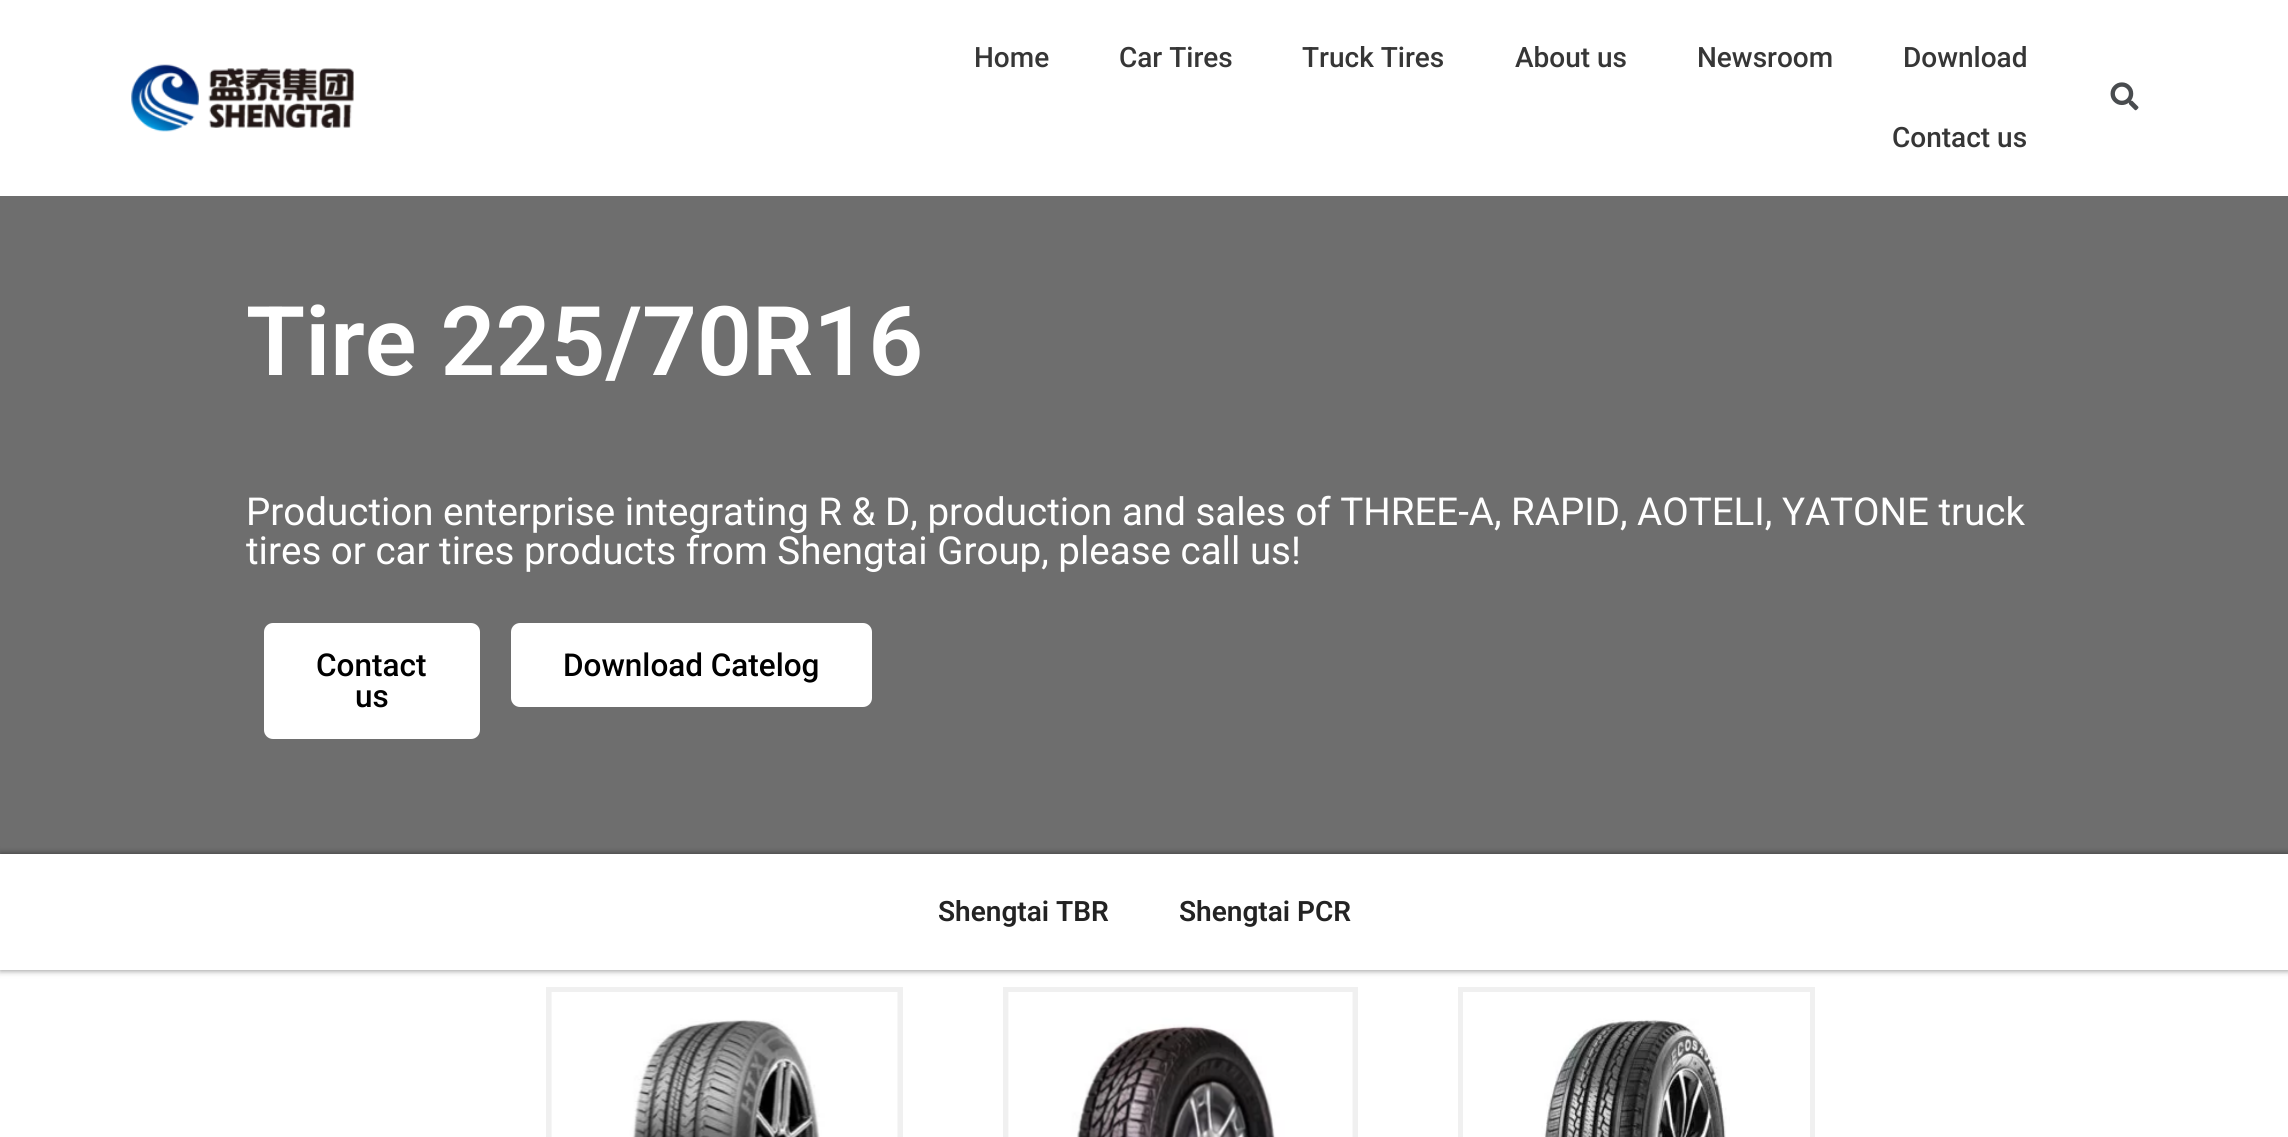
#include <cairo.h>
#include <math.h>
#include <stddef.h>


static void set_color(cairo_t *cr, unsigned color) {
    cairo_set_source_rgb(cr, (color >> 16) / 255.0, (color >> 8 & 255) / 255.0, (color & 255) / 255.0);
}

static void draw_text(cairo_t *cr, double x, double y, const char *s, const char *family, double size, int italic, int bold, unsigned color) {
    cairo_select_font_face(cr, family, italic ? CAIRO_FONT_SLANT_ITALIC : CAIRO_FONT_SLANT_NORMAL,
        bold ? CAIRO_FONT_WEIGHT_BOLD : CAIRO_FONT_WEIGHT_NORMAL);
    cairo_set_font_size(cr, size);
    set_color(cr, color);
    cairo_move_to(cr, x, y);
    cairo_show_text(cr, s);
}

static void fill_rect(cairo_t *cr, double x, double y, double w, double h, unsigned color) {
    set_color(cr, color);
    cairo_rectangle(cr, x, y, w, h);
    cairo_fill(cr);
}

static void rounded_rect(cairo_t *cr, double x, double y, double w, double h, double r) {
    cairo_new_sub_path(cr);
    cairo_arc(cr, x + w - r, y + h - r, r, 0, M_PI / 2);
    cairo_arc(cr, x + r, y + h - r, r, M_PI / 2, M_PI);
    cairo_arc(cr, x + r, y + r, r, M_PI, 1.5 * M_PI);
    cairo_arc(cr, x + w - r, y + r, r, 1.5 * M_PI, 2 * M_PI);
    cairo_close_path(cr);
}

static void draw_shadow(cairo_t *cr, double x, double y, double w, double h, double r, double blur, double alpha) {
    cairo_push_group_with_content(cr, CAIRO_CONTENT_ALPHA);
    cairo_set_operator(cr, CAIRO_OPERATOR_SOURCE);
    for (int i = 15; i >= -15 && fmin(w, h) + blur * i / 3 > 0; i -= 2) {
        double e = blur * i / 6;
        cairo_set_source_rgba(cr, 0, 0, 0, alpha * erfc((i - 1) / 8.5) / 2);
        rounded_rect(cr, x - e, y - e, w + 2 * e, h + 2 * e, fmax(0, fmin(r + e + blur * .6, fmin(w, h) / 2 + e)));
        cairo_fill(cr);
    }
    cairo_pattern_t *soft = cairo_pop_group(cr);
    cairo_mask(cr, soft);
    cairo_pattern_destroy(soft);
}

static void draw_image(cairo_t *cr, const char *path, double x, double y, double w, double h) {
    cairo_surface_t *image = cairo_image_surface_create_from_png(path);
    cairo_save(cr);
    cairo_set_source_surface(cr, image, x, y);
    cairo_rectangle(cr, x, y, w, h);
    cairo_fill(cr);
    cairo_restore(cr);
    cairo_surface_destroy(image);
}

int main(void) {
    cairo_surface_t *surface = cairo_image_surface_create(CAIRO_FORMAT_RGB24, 2288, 1137);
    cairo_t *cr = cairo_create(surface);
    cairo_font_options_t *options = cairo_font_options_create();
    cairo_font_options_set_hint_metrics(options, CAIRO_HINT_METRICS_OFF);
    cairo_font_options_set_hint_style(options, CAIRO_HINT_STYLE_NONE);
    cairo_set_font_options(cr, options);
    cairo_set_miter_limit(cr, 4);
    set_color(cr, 0xFFFFFF);
    cairo_paint(cr);
    draw_image(cr, "assets/img1.png", 131, 64, 223, 68);
    draw_text(cr, 974, 67, "Home", "Roboto Medium", 28, 0, 0, 0x363636);
    draw_text(cr, 1119, 67, "Car Tires", "Roboto Medium", 28, 0, 0, 0x363636);
    draw_text(cr, 1302, 67, "Truck Tires", "Roboto Medium", 28, 0, 0, 0x363636);
    draw_text(cr, 1515, 67, "About us", "Roboto Medium", 28, 0, 0, 0x363636);
    draw_text(cr, 1697, 67, "Newsroom", "Roboto Medium", 28, 0, 0, 0x363636);
    draw_text(cr, 1903, 67, "Download", "Roboto Medium", 28, 0, 0, 0x363636);
    draw_text(cr, 1892, 147, "Contact us", "Roboto Medium", 28, 0, 0, 0x363636);
    draw_image(cr, "assets/img2.png", 2110, 82, 29, 29);
    fill_rect(cr, 0, 196, 2288, 658, 0x6E6E6E);
    draw_text(cr, 246, 375, "Tire 225/70R16", "Roboto SemiBold", 96.25, 0, 0, 0xFFFFFF);
    draw_text(cr, 246, 525, "Production enterprise integrating R & D, production and sales of THREE-A, RAPID, AOTELI, YATONE truck", "Roboto", 38.5, 0, 0, 0xFFFFFF);
    draw_text(cr, 246, 564, "tires or car tires products from Shengtai Group, please call us!", "Roboto", 38.5, 0, 0, 0xFFFFFF);
    rounded_rect(cr, 264, 623, 216, 116, 9);
    cairo_fill(cr);
    draw_text(cr, 316, 676, "Contact", "Roboto Medium", 31.5, 0, 0, 0x000000);
    draw_text(cr, 355, 707, "us", "Roboto Medium", 31.5, 0, 0, 0x000000);
    set_color(cr, 0xFFFFFF);
    rounded_rect(cr, 511, 623, 361, 84, 9);
    cairo_fill(cr);
    draw_text(cr, 563, 676, "Download Catelog", "Roboto Medium", 31.5, 0, 0, 0x000000);
    set_color(cr, 0x000000);
    draw_shadow(cr, 0, 854, 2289, 116, 0, 3.5, 0.5);
    fill_rect(cr, 0, 854, 2288, 116, 0xFFFFFF);
    draw_text(cr, 938, 921, "Shengtai TBR", "Roboto SemiBold", 28, 0, 0, 0x232323);
    draw_text(cr, 1179, 921, "Shengtai PCR", "Roboto SemiBold", 28, 0, 0, 0x232323);
    set_color(cr, 0xEAEAEA);
    cairo_rectangle(cr, 548.5, 989.5, 352, 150);
    cairo_fill_preserve(cr);
    set_color(cr, 0xF0F0F0);
    cairo_set_line_width(cr, 5);
    cairo_stroke(cr);
    draw_image(cr, "assets/img3.png", 551, 992, 347, 145);
    set_color(cr, 0xEAEAEA);
    cairo_rectangle(cr, 1005.5, 989.5, 350, 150);
    cairo_fill_preserve(cr);
    set_color(cr, 0xF0F0F0);
    cairo_stroke(cr);
    draw_image(cr, "assets/img4.png", 1008, 992, 345, 145);
    cairo_rectangle(cr, 1460.5, 989.5, 352, 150);
    cairo_stroke(cr);
    draw_image(cr, "assets/img5.png", 1463, 992, 347, 145);
    cairo_surface_write_to_png(surface, "output.png");
    cairo_font_options_destroy(options);
    cairo_destroy(cr);
    cairo_surface_destroy(surface);
    return 0;
}
